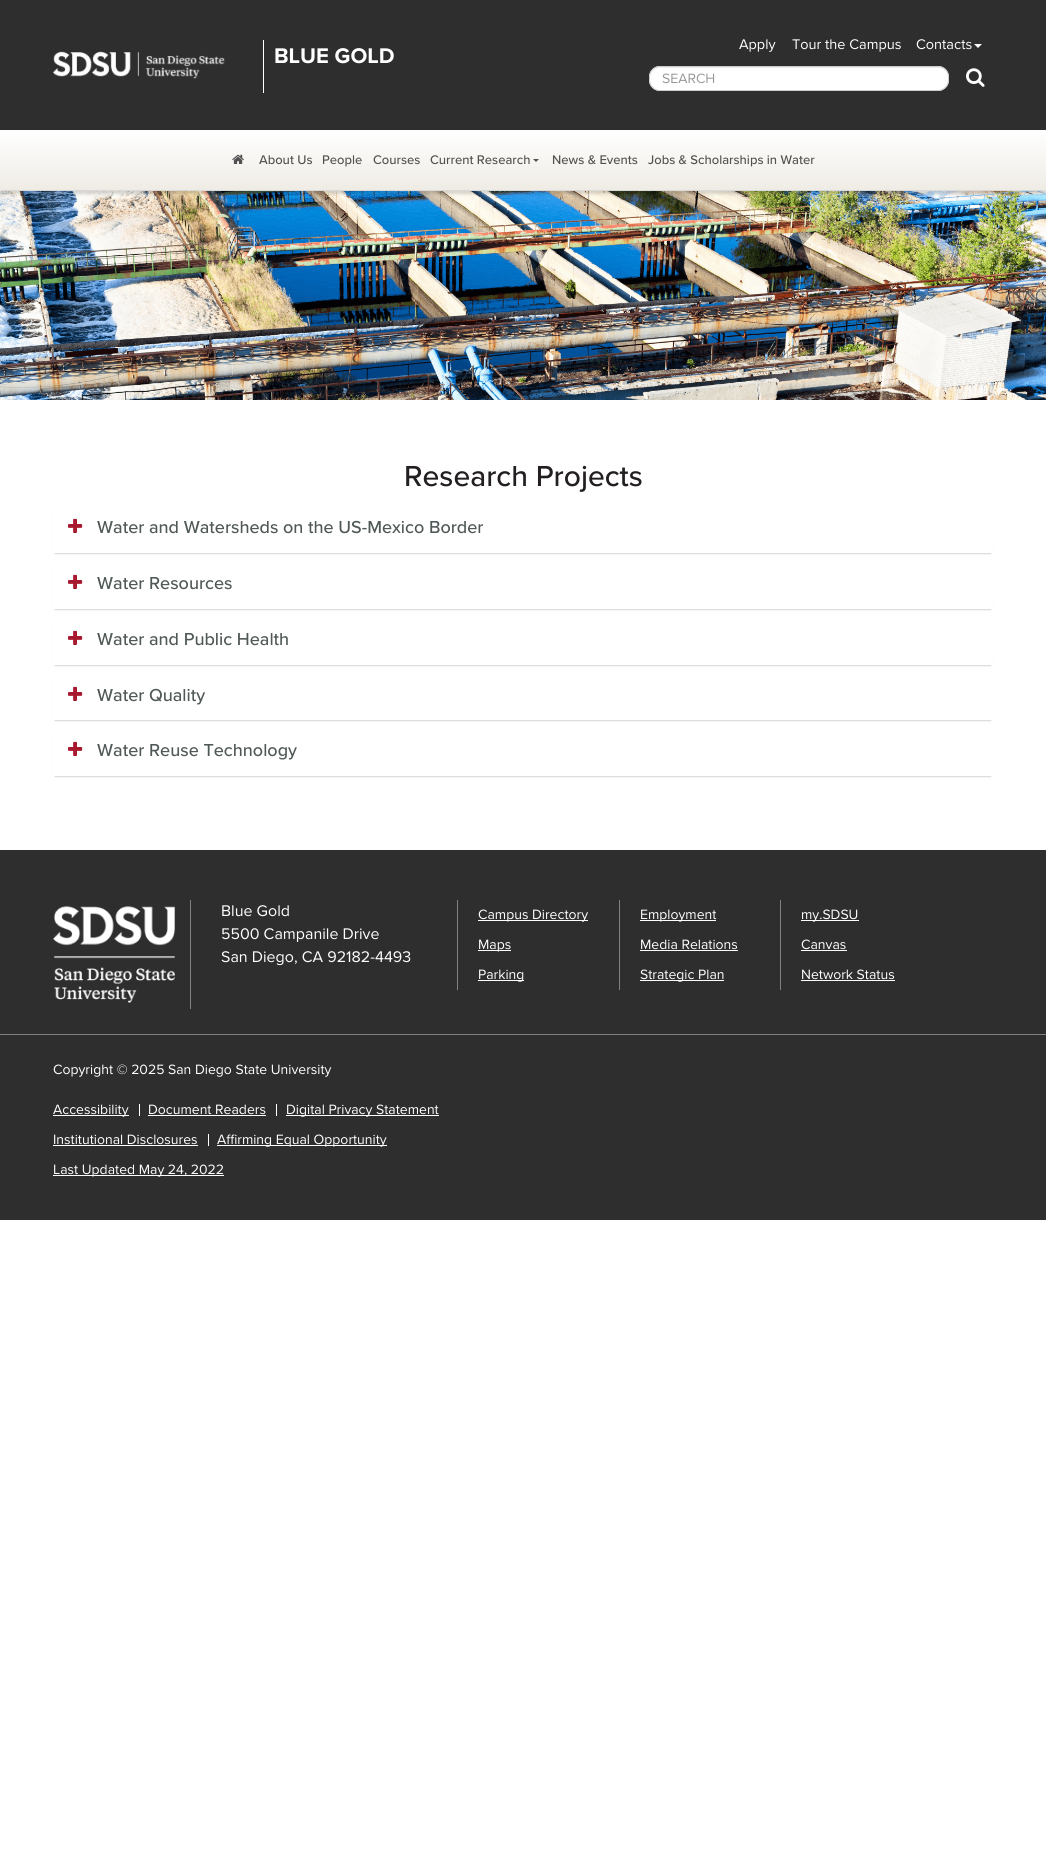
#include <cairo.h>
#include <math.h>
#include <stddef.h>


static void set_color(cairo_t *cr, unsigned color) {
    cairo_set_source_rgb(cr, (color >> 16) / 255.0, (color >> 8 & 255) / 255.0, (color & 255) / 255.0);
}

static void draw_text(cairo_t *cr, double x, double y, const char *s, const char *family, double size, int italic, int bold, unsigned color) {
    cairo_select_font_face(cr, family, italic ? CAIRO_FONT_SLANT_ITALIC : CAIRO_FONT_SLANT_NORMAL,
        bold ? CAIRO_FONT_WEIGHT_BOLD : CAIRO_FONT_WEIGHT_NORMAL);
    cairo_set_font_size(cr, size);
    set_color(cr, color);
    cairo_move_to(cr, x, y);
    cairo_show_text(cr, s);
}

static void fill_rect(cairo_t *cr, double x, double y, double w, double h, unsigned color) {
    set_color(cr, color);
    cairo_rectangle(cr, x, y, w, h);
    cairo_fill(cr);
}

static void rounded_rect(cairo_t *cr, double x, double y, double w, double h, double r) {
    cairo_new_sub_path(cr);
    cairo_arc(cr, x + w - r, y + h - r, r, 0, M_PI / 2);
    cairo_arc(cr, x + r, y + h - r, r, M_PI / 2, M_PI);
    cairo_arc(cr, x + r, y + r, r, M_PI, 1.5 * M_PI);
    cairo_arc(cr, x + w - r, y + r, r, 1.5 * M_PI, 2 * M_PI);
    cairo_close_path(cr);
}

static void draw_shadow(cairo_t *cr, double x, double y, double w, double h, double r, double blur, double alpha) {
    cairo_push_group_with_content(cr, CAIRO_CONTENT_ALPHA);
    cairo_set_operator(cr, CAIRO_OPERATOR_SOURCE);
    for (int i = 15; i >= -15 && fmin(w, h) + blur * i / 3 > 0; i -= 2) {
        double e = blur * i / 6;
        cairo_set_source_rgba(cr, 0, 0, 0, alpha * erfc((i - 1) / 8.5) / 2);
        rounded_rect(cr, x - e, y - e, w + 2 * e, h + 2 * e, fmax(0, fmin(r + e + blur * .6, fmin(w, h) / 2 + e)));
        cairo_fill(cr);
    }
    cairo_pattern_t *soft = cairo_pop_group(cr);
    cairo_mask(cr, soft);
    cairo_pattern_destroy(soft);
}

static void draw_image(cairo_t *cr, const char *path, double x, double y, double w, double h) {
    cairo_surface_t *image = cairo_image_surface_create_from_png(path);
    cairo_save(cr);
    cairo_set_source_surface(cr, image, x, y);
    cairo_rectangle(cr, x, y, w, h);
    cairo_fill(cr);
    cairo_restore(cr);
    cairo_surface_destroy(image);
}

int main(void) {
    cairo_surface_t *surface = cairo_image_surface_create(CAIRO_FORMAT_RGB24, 1046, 1856);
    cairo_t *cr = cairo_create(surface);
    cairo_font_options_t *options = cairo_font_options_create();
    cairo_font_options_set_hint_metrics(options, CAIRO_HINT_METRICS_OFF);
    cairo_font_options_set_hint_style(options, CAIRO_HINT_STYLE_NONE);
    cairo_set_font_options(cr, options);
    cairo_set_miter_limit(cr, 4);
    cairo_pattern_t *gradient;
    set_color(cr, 0xFFFFFF);
    cairo_paint(cr);
    fill_rect(cr, 0, 0, 1046, 130, 0x2E2E2E);
    fill_rect(cr, 263, 40, 1, 53, 0xFFFFFF);
    draw_image(cr, "assets/img1.png", 53, 51, 172, 28);
    draw_text(cr, 274, 63, "BLUE GOLD", "Proxima Nova", 22, 0, 1, 0xFFFFFF);
    draw_text(cr, 739, 49, "Apply", "Proxima Nova", 14.5, 0, 0, 0xFFFFFF);
    draw_text(cr, 792, 49, "Tour the Campus", "Proxima Nova", 14.5, 0, 0, 0xFFFFFF);
    draw_text(cr, 916, 49, "Contacts", "Proxima Nova", 14.5, 0, 0, 0xFFFFFF);
    cairo_new_path(cr);
    cairo_move_to(cr, 974, 44);
    cairo_line_to(cr, 982, 44);
    cairo_line_to(cr, 978, 48);
    cairo_close_path(cr);
    cairo_fill(cr);
    rounded_rect(cr, 649, 66, 300, 25, 11);
    cairo_fill(cr);
    set_color(cr, 0xECECEC);
    cairo_new_path(cr);
    cairo_move_to(cr, 660, 68);
    cairo_line_to(cr, 938, 68);
    cairo_curve_to(cr, 943, 68, 947, 71, 948, 75);
    cairo_curve_to(cr, 947, 71, 943, 67, 938, 67);
    cairo_line_to(cr, 660, 67);
    cairo_curve_to(cr, 655, 67, 651, 71, 650, 76);
    cairo_curve_to(cr, 651, 72, 655, 68, 660, 68);
    cairo_close_path(cr);
    cairo_fill(cr);
    rounded_rect(cr, 649.5, 66.5, 299, 24, 10.5);
    set_color(cr, 0xCCCCCC);
    cairo_set_line_width(cr, 1);
    cairo_stroke(cr);
    draw_text(cr, 662, 83, "SEARCH", "Proxima Nova", 14, 0, 0, 0x999999);
    draw_image(cr, "assets/img2.png", 966, 68, 19, 19);
    draw_image(cr, "assets/img4.png", 0, 191, 1046, 209);
    set_color(cr, 0x000000);
    draw_shadow(cr, 0, 134, 1046, 60, 0, 1.5, 0.15);
    gradient = cairo_pattern_create_linear(523, 130, 523, 190);
    cairo_pattern_add_color_stop_rgba(gradient, 0, 1, 1, 1, 1);
    cairo_pattern_add_color_stop_rgba(gradient, 1, 0.937, 0.925, 0.898, 1);
    cairo_set_source(cr, gradient);
    cairo_pattern_destroy(gradient);
    cairo_rectangle(cr, 0, 132, 1046, 58);
    cairo_fill(cr);
    draw_image(cr, "assets/img3.png", 232, 154, 12, 10);
    draw_text(cr, 259, 164, "About Us", "Proxima Nova Medium", 13, 0, 0, 0x515251);
    draw_text(cr, 322, 164, "People", "Proxima Nova Medium", 13, 0, 0, 0x515251);
    draw_text(cr, 373, 164, "Courses", "Proxima Nova Medium", 13, 0, 0, 0x515251);
    draw_text(cr, 430, 164, "Current Research", "Proxima Nova Medium", 13, 0, 0, 0x515251);
    cairo_new_path(cr);
    cairo_move_to(cr, 533, 159);
    cairo_line_to(cr, 539, 159);
    cairo_line_to(cr, 536, 162);
    cairo_close_path(cr);
    cairo_fill(cr);
    draw_text(cr, 552, 164, "News & Events", "Proxima Nova Medium", 13, 0, 0, 0x515251);
    draw_text(cr, 648, 164, "Jobs & Scholarships in Water", "Proxima Nova Medium", 13, 0, 0, 0x515251);
    draw_text(cr, 404, 486, "Research Projects", "Proxima Nova Medium", 30, 0, 0, 0x231F20);
    set_color(cr, 0x000000);
    draw_shadow(cr, 53, 504, 940, 51, 4, 0.5, 0.05);
    fill_rect(cr, 55, 553, 936, 1, 0xDDDDDD);
    set_color(cr, 0xFFFFFF);
    cairo_new_path(cr);
    cairo_move_to(cr, 56, 503);
    cairo_line_to(cr, 990, 503);
    cairo_curve_to(cr, 991.5, 503, 993, 504.5, 993, 506);
    cairo_line_to(cr, 993, 553);
    cairo_line_to(cr, 53, 553);
    cairo_line_to(cr, 53, 506);
    cairo_curve_to(cr, 53, 504.5, 54.5, 503, 56, 503);
    cairo_close_path(cr);
    cairo_fill(cr);
    draw_image(cr, "assets/img5.png", 68, 518, 15, 15);
    draw_text(cr, 97, 533, "Water and Watersheds on the US-Mexico Border", "Proxima Nova Medium", 18, 0, 0, 0x505958);
    set_color(cr, 0x000000);
    draw_shadow(cr, 53, 560, 940, 51, 4, 0.5, 0.05);
    fill_rect(cr, 55, 609, 936, 1, 0xDDDDDD);
    set_color(cr, 0xFFFFFF);
    cairo_new_path(cr);
    cairo_move_to(cr, 56, 559);
    cairo_line_to(cr, 990, 559);
    cairo_curve_to(cr, 991.5, 559, 993, 560.5, 993, 562);
    cairo_line_to(cr, 993, 609);
    cairo_line_to(cr, 53, 609);
    cairo_line_to(cr, 53, 562);
    cairo_curve_to(cr, 53, 560.5, 54.5, 559, 56, 559);
    cairo_close_path(cr);
    cairo_fill(cr);
    draw_image(cr, "assets/img5.png", 68, 574, 15, 15);
    draw_text(cr, 97, 589, "Water Resources", "Proxima Nova Medium", 18, 0, 0, 0x505958);
    set_color(cr, 0x000000);
    draw_shadow(cr, 53, 616, 940, 51, 4, 0.5, 0.05);
    fill_rect(cr, 55, 665, 936, 1, 0xDDDDDD);
    set_color(cr, 0xFFFFFF);
    cairo_new_path(cr);
    cairo_move_to(cr, 56, 615);
    cairo_line_to(cr, 990, 615);
    cairo_curve_to(cr, 991.5, 615, 993, 616.5, 993, 618);
    cairo_line_to(cr, 993, 665);
    cairo_line_to(cr, 53, 665);
    cairo_line_to(cr, 53, 618);
    cairo_curve_to(cr, 53, 616.5, 54.5, 615, 56, 615);
    cairo_close_path(cr);
    cairo_fill(cr);
    draw_image(cr, "assets/img5.png", 68, 630, 15, 15);
    draw_text(cr, 97, 645, "Water and Public Health", "Proxima Nova Medium", 18, 0, 0, 0x505958);
    set_color(cr, 0x000000);
    draw_shadow(cr, 53, 672, 940, 50, 4, 0.5, 0.05);
    fill_rect(cr, 55, 720, 936, 1, 0xDDDDDD);
    set_color(cr, 0xFFFFFF);
    cairo_new_path(cr);
    cairo_move_to(cr, 56, 671);
    cairo_line_to(cr, 990, 671);
    cairo_curve_to(cr, 991.5, 671, 993, 672.5, 993, 674);
    cairo_line_to(cr, 993, 720);
    cairo_line_to(cr, 53, 720);
    cairo_line_to(cr, 53, 674);
    cairo_curve_to(cr, 53, 672.5, 54.5, 671, 56, 671);
    cairo_close_path(cr);
    cairo_fill(cr);
    draw_image(cr, "assets/img5.png", 68, 686, 15, 15);
    draw_text(cr, 97, 701, "Water Quality", "Proxima Nova Medium", 18, 0, 0, 0x505958);
    set_color(cr, 0x000000);
    draw_shadow(cr, 53, 727, 940, 51, 4, 0.5, 0.05);
    fill_rect(cr, 55, 776, 936, 1, 0xDDDDDD);
    set_color(cr, 0xFFFFFF);
    cairo_new_path(cr);
    cairo_move_to(cr, 56, 726);
    cairo_line_to(cr, 990, 726);
    cairo_curve_to(cr, 991.5, 726, 993, 727.5, 993, 729);
    cairo_line_to(cr, 993, 776);
    cairo_line_to(cr, 53, 776);
    cairo_line_to(cr, 53, 729);
    cairo_curve_to(cr, 53, 727.5, 54.5, 726, 56, 726);
    cairo_close_path(cr);
    cairo_fill(cr);
    draw_image(cr, "assets/img5.png", 68, 741, 15, 15);
    draw_text(cr, 97, 756, "Water Reuse Technology", "Proxima Nova Medium", 18, 0, 0, 0x505958);
    fill_rect(cr, 0, 850, 1046, 370, 0x2E2E2E);
    fill_rect(cr, 190, 900, 1, 109, 0x818181);
    draw_image(cr, "assets/img6.png", 53, 906, 122, 97);
    draw_text(cr, 221, 916, "Blue Gold", "Proxima Nova", 16, 0, 0, 0xFFFFFF);
    draw_text(cr, 221, 939, "5500 Campanile Drive", "Proxima Nova", 16, 0, 0, 0xFFFFFF);
    draw_text(cr, 221, 962, "San Diego, CA 92182-4493", "Proxima Nova", 16, 0, 0, 0xFFFFFF);
    fill_rect(cr, 457, 900, 1, 90, 0x818181);
    fill_rect(cr, 478, 920, 110, 1, 0xFFFFFF);
    draw_text(cr, 478, 919, "Campus Directory", "Proxima Nova", 14, 0, 0, 0xFFFFFF);
    fill_rect(cr, 478, 950, 33, 1, 0xFFFFFF);
    draw_text(cr, 478, 949, "Maps", "Proxima Nova", 14, 0, 0, 0xFFFFFF);
    fill_rect(cr, 478, 980, 46, 1, 0xFFFFFF);
    draw_text(cr, 478, 979, "Parking", "Proxima Nova", 14, 0, 0, 0xFFFFFF);
    fill_rect(cr, 619, 900, 1, 90, 0x818181);
    fill_rect(cr, 640, 920, 76, 1, 0xFFFFFF);
    draw_text(cr, 640, 919, "Employment", "Proxima Nova", 14, 0, 0, 0xFFFFFF);
    draw_text(cr, 640, 949, "Media Relations", "Proxima Nova", 14, 0, 0, 0xFFFFFF);
    fill_rect(cr, 640, 950, 98, 1, 0xFFFFFF);
    fill_rect(cr, 640, 980, 84, 1, 0xFFFFFF);
    draw_text(cr, 640, 979, "Strategic Plan", "Proxima Nova", 14, 0, 0, 0xFFFFFF);
    fill_rect(cr, 780, 900, 1, 90, 0x818181);
    fill_rect(cr, 801, 920, 58, 1, 0xFFFFFF);
    draw_text(cr, 801, 919, "my.SDSU", "Proxima Nova", 14, 0, 0, 0xFFFFFF);
    draw_text(cr, 801, 949, "Canvas", "Proxima Nova", 14, 0, 0, 0xFFFFFF);
    fill_rect(cr, 801, 950, 46, 1, 0xFFFFFF);
    draw_text(cr, 801, 979, "Network Status", "Proxima Nova", 14, 0, 0, 0xFFFFFF);
    fill_rect(cr, 801, 980, 94, 1, 0xFFFFFF);
    fill_rect(cr, 0, 1034, 1046, 1, 0x818181);
    draw_text(cr, 53, 1074, "Copyright © 2025 San Diego State University", "Proxima Nova", 14, 0, 0, 0xFFFFFF);
    fill_rect(cr, 139, 1104, 1, 12, 0xFFFFFF);
    fill_rect(cr, 53, 1115, 76, 1, 0xFFFFFF);
    draw_text(cr, 53, 1114, "Accessibility", "Proxima Nova", 14, 0, 0, 0xFFFFFF);
    fill_rect(cr, 276, 1104, 1, 12, 0xFFFFFF);
    draw_text(cr, 148, 1114, "Document Readers", "Proxima Nova", 14, 0, 0, 0xFFFFFF);
    fill_rect(cr, 148, 1115, 118, 1, 0xFFFFFF);
    fill_rect(cr, 286, 1115, 153, 1, 0xFFFFFF);
    draw_text(cr, 286, 1114, "Digital Privacy Statement", "Proxima Nova", 14, 0, 0, 0xFFFFFF);
    fill_rect(cr, 208, 1134, 1, 12, 0xFFFFFF);
    draw_text(cr, 53, 1144, "Institutional Disclosures", "Proxima Nova", 14, 0, 0, 0xFFFFFF);
    fill_rect(cr, 53, 1145, 145, 1, 0xFFFFFF);
    fill_rect(cr, 217, 1145, 170, 1, 0xFFFFFF);
    draw_text(cr, 217, 1144, "Affirming Equal Opportunity", "Proxima Nova", 14, 0, 0, 0xFFFFFF);
    fill_rect(cr, 53, 1175, 171, 1, 0xFFFFFF);
    draw_text(cr, 53, 1174, "Last Updated May 24, 2022", "Proxima Nova", 14, 0, 0, 0xFFFFFF);
    cairo_surface_write_to_png(surface, "output.png");
    cairo_font_options_destroy(options);
    cairo_destroy(cr);
    cairo_surface_destroy(surface);
    return 0;
}
